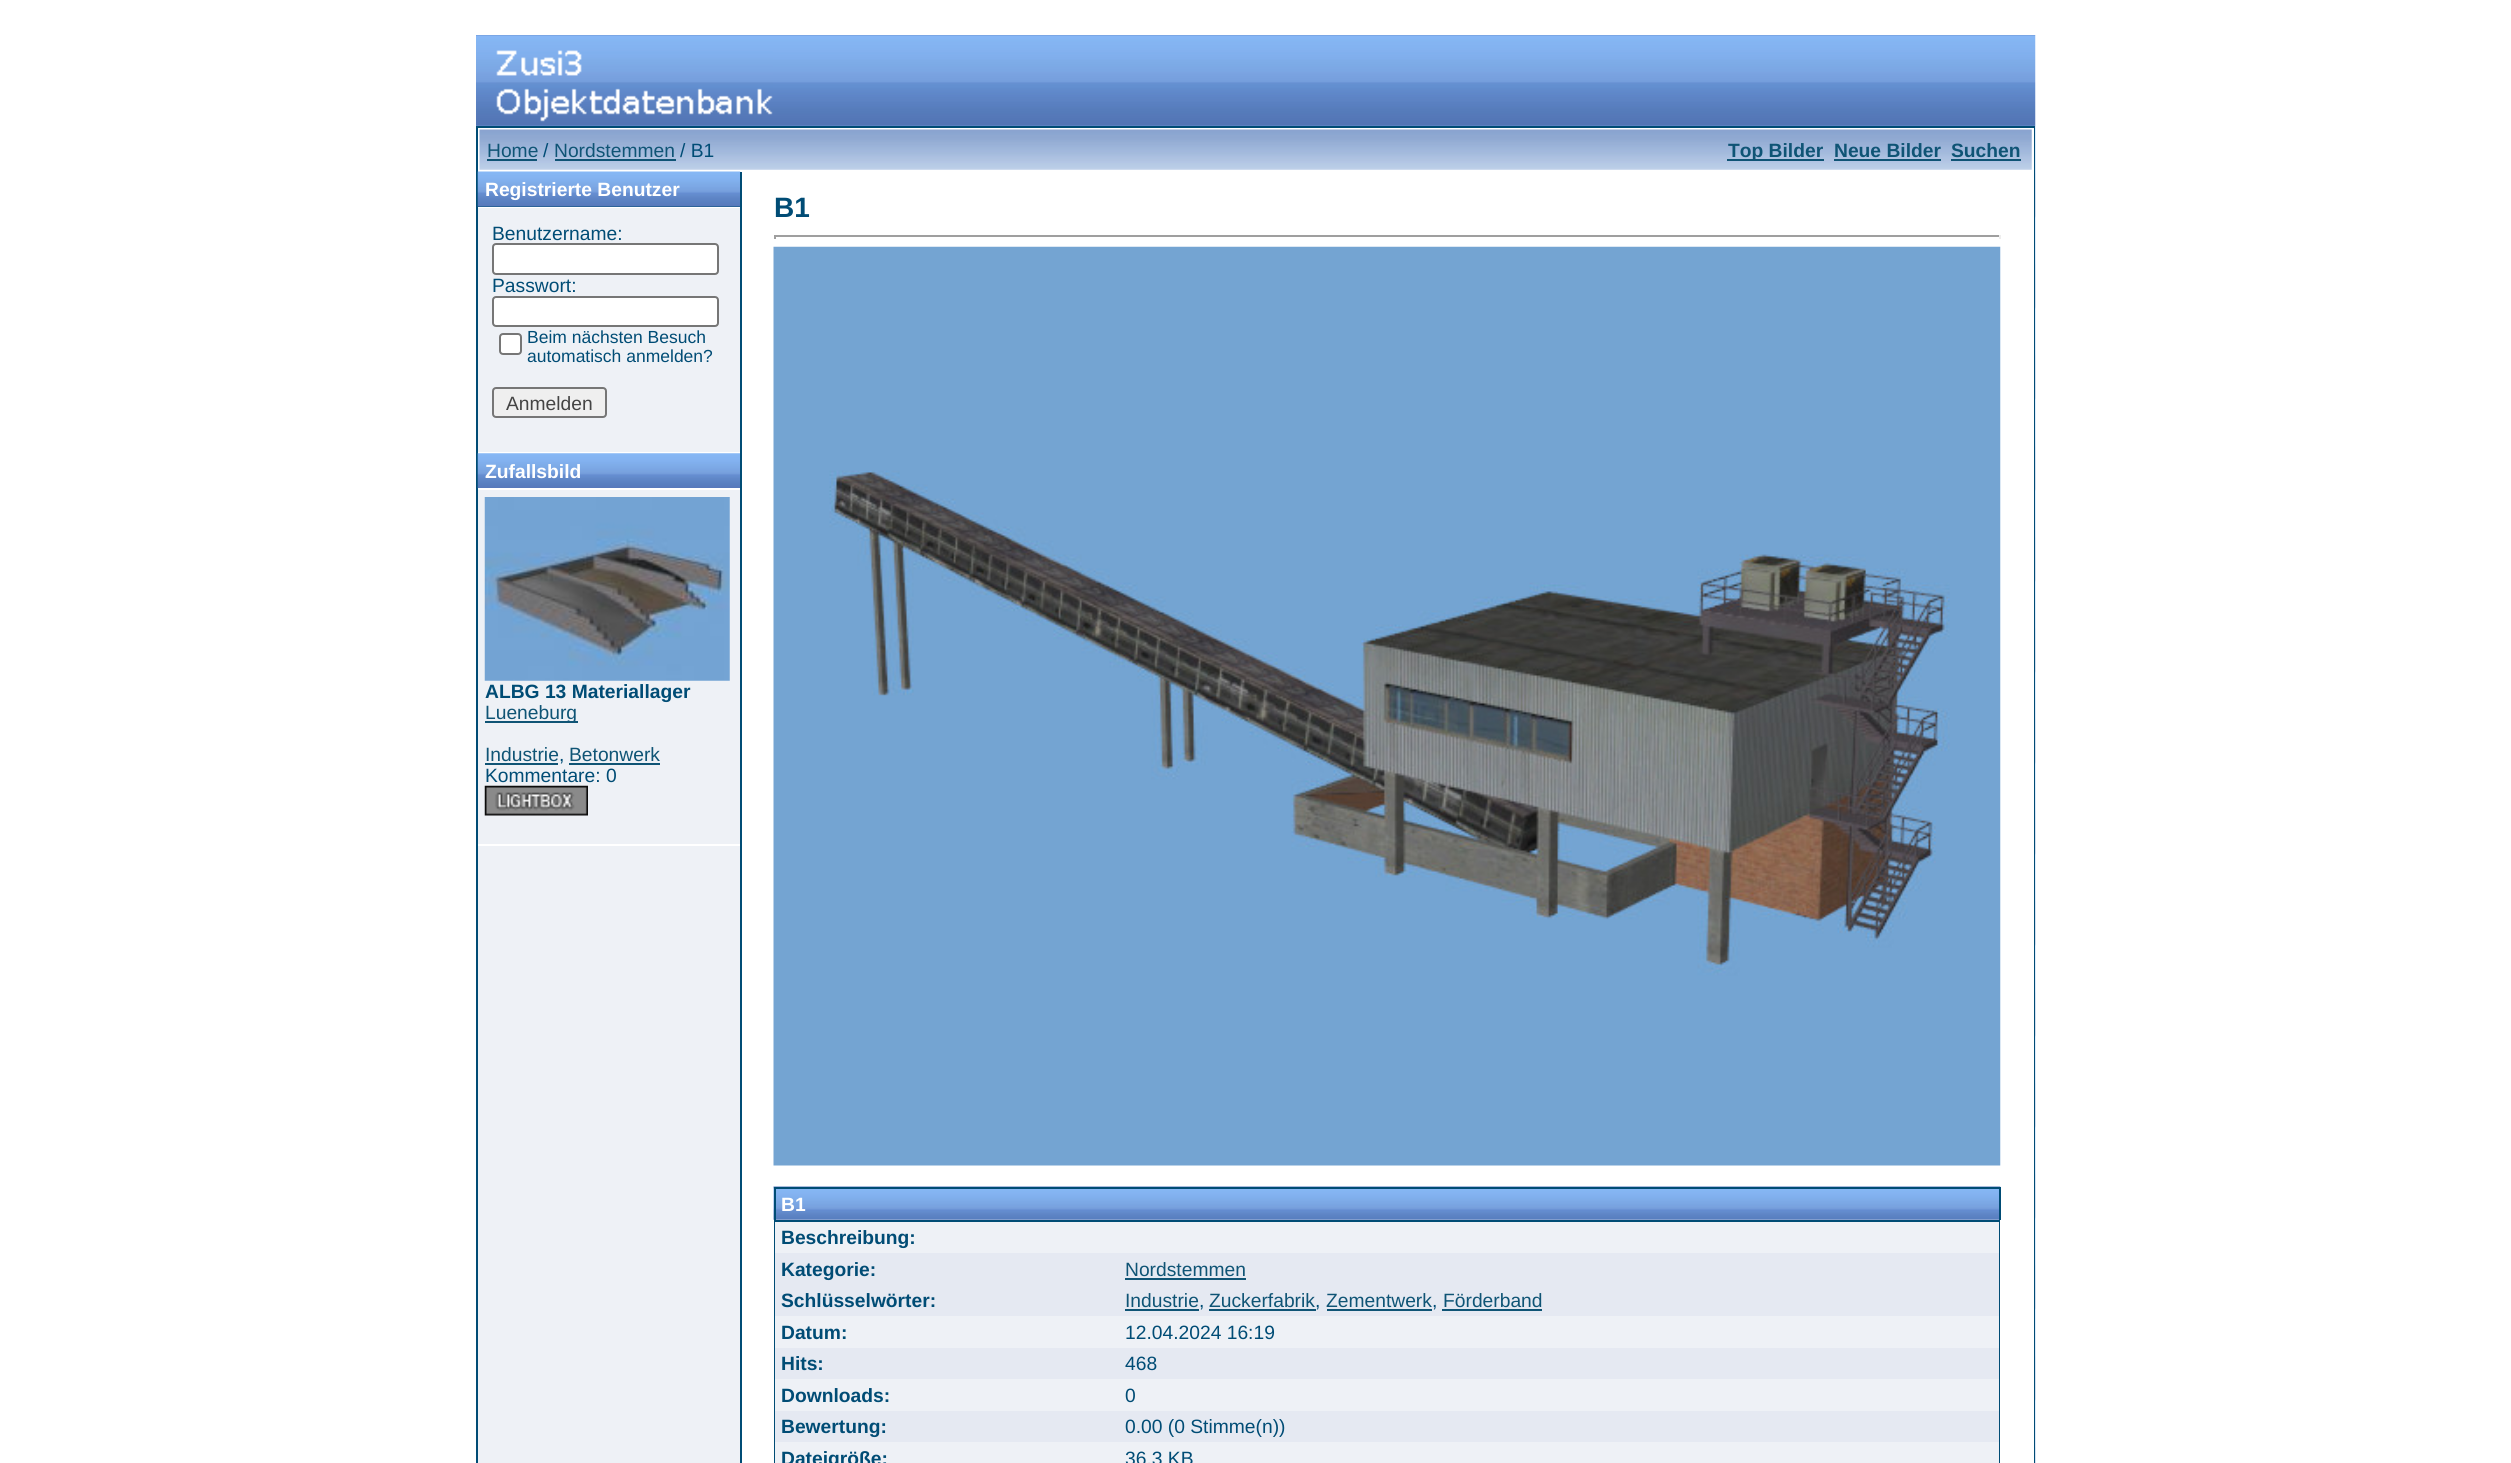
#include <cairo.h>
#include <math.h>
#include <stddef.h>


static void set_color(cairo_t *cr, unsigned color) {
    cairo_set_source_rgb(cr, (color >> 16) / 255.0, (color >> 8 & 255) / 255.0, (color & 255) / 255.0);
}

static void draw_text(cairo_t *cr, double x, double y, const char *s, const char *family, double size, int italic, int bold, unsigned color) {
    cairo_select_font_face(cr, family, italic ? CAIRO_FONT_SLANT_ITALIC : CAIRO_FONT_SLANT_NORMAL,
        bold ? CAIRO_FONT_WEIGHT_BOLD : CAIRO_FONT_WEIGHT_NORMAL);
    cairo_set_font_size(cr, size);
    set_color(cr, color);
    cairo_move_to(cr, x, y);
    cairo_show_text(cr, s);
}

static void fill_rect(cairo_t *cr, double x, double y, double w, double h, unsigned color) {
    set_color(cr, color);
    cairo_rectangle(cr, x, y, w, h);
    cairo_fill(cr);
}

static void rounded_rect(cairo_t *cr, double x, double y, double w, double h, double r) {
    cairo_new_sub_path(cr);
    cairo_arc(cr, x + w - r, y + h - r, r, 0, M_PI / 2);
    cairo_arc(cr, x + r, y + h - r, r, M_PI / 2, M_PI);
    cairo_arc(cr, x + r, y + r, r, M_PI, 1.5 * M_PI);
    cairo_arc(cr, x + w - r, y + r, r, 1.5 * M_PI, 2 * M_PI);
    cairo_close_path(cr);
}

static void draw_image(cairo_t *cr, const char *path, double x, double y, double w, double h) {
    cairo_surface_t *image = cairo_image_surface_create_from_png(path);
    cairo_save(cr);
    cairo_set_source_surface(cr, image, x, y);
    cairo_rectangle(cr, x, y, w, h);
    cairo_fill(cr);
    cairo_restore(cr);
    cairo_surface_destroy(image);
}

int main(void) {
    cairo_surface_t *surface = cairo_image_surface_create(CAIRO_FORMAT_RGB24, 2511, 1463);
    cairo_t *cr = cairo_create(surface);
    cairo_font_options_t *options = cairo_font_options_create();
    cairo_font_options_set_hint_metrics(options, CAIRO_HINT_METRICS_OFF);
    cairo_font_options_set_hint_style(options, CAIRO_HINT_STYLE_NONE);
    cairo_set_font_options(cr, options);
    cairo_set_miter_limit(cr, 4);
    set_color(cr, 0xFFFFFF);
    cairo_paint(cr);
    draw_image(cr, "assets/img1.png", 476, 35, 1560, 1428);
    draw_image(cr, "assets/img2.png", 496, 50, 277, 72);
    fill_rect(cr, 476, 126, 1559, 1337, 0x004C75);
    fill_rect(cr, 478, 128, 1556, 1335, 0xFFFFFF);
    draw_image(cr, "assets/img3.png", 479, 129, 1553, 41);
    draw_text(cr, 487, 157, "Home", "Liberation Sans", 19.25, 0, 0, 0x0F5475);
    fill_rect(cr, 487, 159, 50, 2, 0x0F5475);
    draw_text(cr, 543, 157, "/", "Liberation Sans", 19.25, 0, 0, 0x004C75);
    draw_text(cr, 554, 157, "Nordstemmen", "Liberation Sans", 19.25, 0, 0, 0x0F5475);
    fill_rect(cr, 555, 159, 121, 2, 0x0F5475);
    draw_text(cr, 680, 157, "/ B1", "Liberation Sans", 19.25, 0, 0, 0x004C75);
    fill_rect(cr, 1727, 159, 97, 2, 0x0F5475);
    draw_text(cr, 1728, 157, "Top Bilder", "Liberation Sans", 19.25, 0, 1, 0x0F5475);
    draw_text(cr, 1834, 157, "Neue Bilder", "Liberation Sans", 19.25, 0, 1, 0x0F5475);
    fill_rect(cr, 1834, 159, 107, 2, 0x0F5475);
    draw_text(cr, 1951, 157, "Suchen", "Liberation Sans", 19.25, 0, 1, 0x0F5475);
    fill_rect(cr, 1951, 159, 70, 2, 0x0F5475);
    fill_rect(cr, 478, 490, 262, 973, 0xEEF1F6);
    fill_rect(cr, 478, 206, 262, 1, 0x004C75);
    draw_image(cr, "assets/img4.png", 477, 171, 264, 36);
    draw_text(cr, 485, 196, "Registrierte Benutzer", "Liberation Sans", 19.25, 0, 1, 0xFFFFFF);
    fill_rect(cr, 478, 208, 262, 244, 0xEEF1F6);
    draw_text(cr, 492, 240, "Benutzername:", "Liberation Sans", 19.25, 0, 0, 0x004C75);
    set_color(cr, 0xFFFFFF);
    rounded_rect(cr, 493, 244, 225, 30, 3);
    cairo_fill_preserve(cr);
    set_color(cr, 0x767676);
    cairo_stroke(cr);
    draw_text(cr, 492, 292, "Passwort:", "Liberation Sans", 19.25, 0, 0, 0x004C75);
    set_color(cr, 0xFFFFFF);
    rounded_rect(cr, 493, 297, 225, 29, 3);
    cairo_fill_preserve(cr);
    set_color(cr, 0x767676);
    cairo_stroke(cr);
    set_color(cr, 0xFFFFFF);
    rounded_rect(cr, 500, 334, 21, 20, 3);
    cairo_fill_preserve(cr);
    set_color(cr, 0x767676);
    cairo_stroke(cr);
    draw_text(cr, 527, 343, "Beim nächsten Besuch", "Liberation Sans", 17.5, 0, 0, 0x004C75);
    draw_text(cr, 527, 362, "automatisch anmelden?", "Liberation Sans", 17.5, 0, 0, 0x004C75);
    set_color(cr, 0xEFEFEF);
    rounded_rect(cr, 493, 388, 113, 29, 3);
    cairo_fill_preserve(cr);
    set_color(cr, 0x767676);
    cairo_stroke(cr);
    draw_text(cr, 506, 410, "Anmelden", "Liberation Sans", 19.25, 0, 0, 0x444444);
    draw_image(cr, "assets/img5.png", 477, 453, 263, 36);
    draw_text(cr, 485, 478, "Zufallsbild", "Liberation Sans", 19.25, 0, 1, 0xFFFFFF);
    fill_rect(cr, 478, 488, 262, 1, 0xFFFFFF);
    draw_image(cr, "assets/img6.png", 484, 497, 246, 184);
    draw_text(cr, 485, 698, "ALBG 13 Materiallager", "Liberation Sans", 19.25, 0, 1, 0x004C75);
    fill_rect(cr, 485, 721, 93, 2, 0x0F5475);
    draw_text(cr, 485, 719, "Lueneburg", "Liberation Sans", 19.25, 0, 0, 0x0F5475);
    draw_text(cr, 485, 761, "Industrie", "Liberation Sans", 19.25, 0, 0, 0x0F5475);
    fill_rect(cr, 485, 763, 73, 2, 0x0F5475);
    draw_text(cr, 559, 761, ",", "Liberation Sans", 19.25, 0, 0, 0x004C75);
    draw_text(cr, 569, 761, "Betonwerk", "Liberation Sans", 19.25, 0, 0, 0x0F5475);
    fill_rect(cr, 569, 763, 91, 2, 0x0F5475);
    draw_text(cr, 485, 782, "Kommentare: 0", "Liberation Sans", 19.25, 0, 0, 0x004C75);
    draw_image(cr, "assets/img7.png", 484, 785, 104, 31);
    fill_rect(cr, 478, 844, 262, 2, 0xFFFFFF);
    fill_rect(cr, 740, 172, 2, 1291, 0x004C75);
    draw_text(cr, 774, 217, "B1", "Liberation Sans", 28, 0, 1, 0x004C75);
    fill_rect(cr, 774, 235, 1226, 2, 0x9F9F9F);
    fill_rect(cr, 1999, 235, 2, 4, 0xEEEEEE);
    fill_rect(cr, 774, 235, 2, 4, 0x9F9F9F);
    draw_image(cr, "assets/img8.png", 773, 246, 1228, 920);
    draw_image(cr, "assets/img9.png", 773, 1186, 1228, 34);
    fill_rect(cr, 774, 1187, 1226, 2, 0x004C75);
    fill_rect(cr, 1999, 1187, 2, 33, 0x004C75);
    fill_rect(cr, 774, 1187, 2, 33, 0x004C75);
    draw_text(cr, 781, 1211, "B1", "Liberation Sans", 19.25, 0, 1, 0xFFFFFF);
    fill_rect(cr, 774, 1220, 1226, 243, 0x004C75);
    fill_rect(cr, 775, 1222, 1224, 31, 0xEEF1F6);
    draw_text(cr, 781, 1244, "Beschreibung:", "Liberation Sans", 19.25, 0, 1, 0x004C75);
    fill_rect(cr, 775, 1253, 1224, 32, 0xE5E9F2);
    draw_text(cr, 781, 1276, "Kategorie:", "Liberation Sans", 19.25, 0, 1, 0x004C75);
    draw_text(cr, 1125, 1276, "Nordstemmen", "Liberation Sans", 19.25, 0, 0, 0x0F5475);
    fill_rect(cr, 1125, 1278, 121, 2, 0x0F5475);
    fill_rect(cr, 775, 1285, 1224, 31, 0xE5E9F2);
    draw_text(cr, 781, 1307, "Schlüsselwörter:", "Liberation Sans", 19.25, 0, 1, 0x004C75);
    draw_text(cr, 1125, 1307, "Industrie", "Liberation Sans", 19.25, 0, 0, 0x0F5475);
    fill_rect(cr, 1125, 1309, 74, 2, 0x0F5475);
    draw_text(cr, 1199, 1307, ",", "Liberation Sans", 19.25, 0, 0, 0x004C75);
    draw_text(cr, 1209, 1307, "Zuckerfabrik", "Liberation Sans", 19.25, 0, 0, 0x0F5475);
    fill_rect(cr, 1209, 1309, 107, 2, 0x0F5475);
    draw_text(cr, 1315, 1307, ",", "Liberation Sans", 19.25, 0, 0, 0x004C75);
    draw_text(cr, 1326, 1307, "Zementwerk", "Liberation Sans", 19.25, 0, 0, 0x0F5475);
    fill_rect(cr, 1327, 1309, 105, 2, 0x0F5475);
    draw_text(cr, 1432, 1307, ",", "Liberation Sans", 19.25, 0, 0, 0x004C75);
    draw_text(cr, 1443, 1307, "Förderband", "Liberation Sans", 19.25, 0, 0, 0x0F5475);
    fill_rect(cr, 1442, 1309, 100, 2, 0x0F5475);
    fill_rect(cr, 775, 1316, 1224, 32, 0xEEF1F6);
    draw_text(cr, 781, 1339, "Datum:", "Liberation Sans", 19.25, 0, 1, 0x004C75);
    draw_text(cr, 1125, 1339, "12.04.2024 16:19", "Liberation Sans", 19.25, 0, 0, 0x004C75);
    fill_rect(cr, 775, 1348, 1224, 31, 0xE5E9F2);
    draw_text(cr, 781, 1370, "Hits:", "Liberation Sans", 19.25, 0, 1, 0x004C75);
    draw_text(cr, 1125, 1370, "468", "Liberation Sans", 19.25, 0, 0, 0x004C75);
    fill_rect(cr, 775, 1379, 1224, 32, 0xEEF1F6);
    draw_text(cr, 781, 1402, "Downloads:", "Liberation Sans", 19.25, 0, 1, 0x004C75);
    draw_text(cr, 1125, 1402, "0", "Liberation Sans", 19.25, 0, 0, 0x004C75);
    fill_rect(cr, 775, 1411, 1224, 31, 0xE5E9F2);
    draw_text(cr, 781, 1433, "Bewertung:", "Liberation Sans", 19.25, 0, 1, 0x004C75);
    draw_text(cr, 1125, 1433, "0.00 (0 Stimme(n))", "Liberation Sans", 19.25, 0, 0, 0x004C75);
    fill_rect(cr, 775, 1442, 1224, 21, 0xEEF1F6);
    draw_text(cr, 781, 1465, "Dateigröße:", "Liberation Sans", 19.25, 0, 1, 0x004C75);
    draw_text(cr, 1125, 1465, "36.3 KB", "Liberation Sans", 19.25, 0, 0, 0x004C75);
    cairo_surface_write_to_png(surface, "output.png");
    cairo_font_options_destroy(options);
    cairo_destroy(cr);
    cairo_surface_destroy(surface);
    return 0;
}
